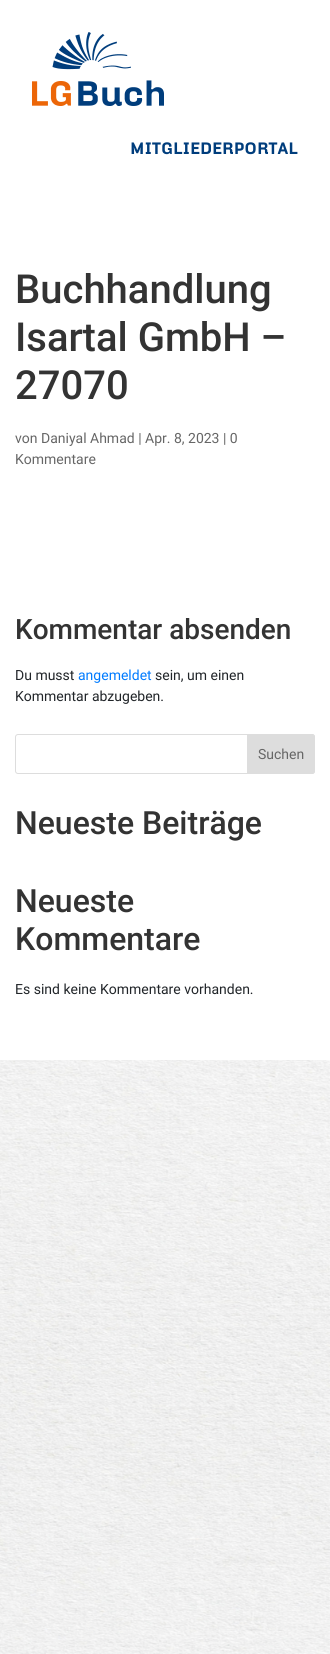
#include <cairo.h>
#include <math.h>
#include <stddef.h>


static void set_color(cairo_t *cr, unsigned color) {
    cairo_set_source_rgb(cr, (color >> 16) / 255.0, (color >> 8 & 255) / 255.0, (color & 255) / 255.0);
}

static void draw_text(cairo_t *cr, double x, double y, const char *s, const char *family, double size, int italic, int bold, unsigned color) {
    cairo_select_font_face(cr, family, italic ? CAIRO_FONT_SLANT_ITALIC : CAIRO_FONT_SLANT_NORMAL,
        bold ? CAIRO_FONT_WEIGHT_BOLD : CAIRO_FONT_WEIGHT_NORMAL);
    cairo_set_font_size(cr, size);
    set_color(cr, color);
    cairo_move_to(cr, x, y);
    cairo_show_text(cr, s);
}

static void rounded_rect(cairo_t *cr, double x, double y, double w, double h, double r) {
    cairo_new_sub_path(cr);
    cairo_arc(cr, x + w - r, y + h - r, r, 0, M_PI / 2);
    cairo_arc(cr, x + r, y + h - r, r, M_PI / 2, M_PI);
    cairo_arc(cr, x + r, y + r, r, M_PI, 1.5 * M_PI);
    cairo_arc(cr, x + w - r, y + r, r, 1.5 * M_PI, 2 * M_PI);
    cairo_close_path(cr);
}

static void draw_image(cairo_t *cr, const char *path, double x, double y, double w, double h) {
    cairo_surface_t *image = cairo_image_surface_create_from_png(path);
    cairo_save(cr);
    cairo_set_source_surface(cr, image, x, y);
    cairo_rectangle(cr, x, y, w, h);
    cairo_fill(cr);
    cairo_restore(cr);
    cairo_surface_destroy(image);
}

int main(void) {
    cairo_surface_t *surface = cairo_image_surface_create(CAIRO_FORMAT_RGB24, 330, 1654);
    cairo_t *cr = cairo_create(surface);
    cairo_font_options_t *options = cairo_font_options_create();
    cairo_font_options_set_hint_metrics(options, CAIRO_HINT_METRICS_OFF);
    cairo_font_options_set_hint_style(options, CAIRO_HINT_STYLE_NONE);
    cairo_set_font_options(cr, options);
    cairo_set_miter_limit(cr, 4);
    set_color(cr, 0xFFFFFF);
    cairo_paint(cr);
    draw_image(cr, "assets/img1.png", 0, 1060, 330, 594);
    draw_image(cr, "assets/img2.png", 32, 32, 132, 74);
    draw_text(cr, 130, 154, "MITGLIEDERPORTAL", "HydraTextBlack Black", 16, 0, 0, 0x003D7C);
    draw_text(cr, 15, 303, "Buchhandlung", "Roboto Medium", 40, 0, 0, 0x333333);
    draw_text(cr, 15, 351, "Isartal GmbH –", "Roboto Medium", 40, 0, 0, 0x333333);
    draw_text(cr, 15, 399, "27070", "Roboto Medium", 40, 0, 0, 0x333333);
    draw_text(cr, 15, 443, "von Daniyal Ahmad | Apr. 8, 2023 | 0", "Roboto", 14, 0, 0, 0x666666);
    draw_text(cr, 15, 464, "Kommentare", "Roboto", 14, 0, 0, 0x666666);
    draw_text(cr, 15, 639, "Kommentar absenden", "Roboto Medium", 28, 0, 0, 0x333333);
    draw_text(cr, 15, 680, "Du musst", "Roboto", 14, 0, 0, 0x212529);
    draw_text(cr, 78, 680, "angemeldet", "Roboto", 14, 0, 0, 0x007BFF);
    draw_text(cr, 155, 680, "sein, um einen", "Roboto", 14, 0, 0, 0x212529);
    draw_text(cr, 15, 701, "Kommentar abzugeben.", "Roboto", 14, 0, 0, 0x212529);
    rounded_rect(cr, 15.5, 734.5, 299, 39, 2.5);
    set_color(cr, 0xDDDDDD);
    cairo_set_line_width(cr, 1);
    cairo_stroke(cr);
    cairo_new_path(cr);
    cairo_move_to(cr, 247.5, 734.5);
    cairo_line_to(cr, 312, 734.5);
    cairo_curve_to(cr, 313.5, 734.5, 314.5, 735.5, 314.5, 737);
    cairo_line_to(cr, 314.5, 771);
    cairo_curve_to(cr, 314.5, 772.5, 313.5, 773.5, 312, 773.5);
    cairo_line_to(cr, 247.5, 773.5);
    cairo_close_path(cr);
    cairo_fill_preserve(cr);
    cairo_stroke(cr);
    draw_text(cr, 258, 759, "Suchen", "Roboto", 14, 0, 0, 0x666666);
    draw_text(cr, 15, 834, "Neueste Beiträge", "Roboto Medium", 32, 0, 0, 0x333333);
    draw_text(cr, 15, 912, "Neueste", "Roboto Medium", 32, 0, 0, 0x333333);
    draw_text(cr, 15, 950, "Kommentare", "Roboto Medium", 32, 0, 0, 0x333333);
    draw_text(cr, 15, 994, "Es sind keine Kommentare vorhanden.", "Roboto", 14, 0, 0, 0x212529);
    cairo_surface_write_to_png(surface, "output.png");
    cairo_font_options_destroy(options);
    cairo_destroy(cr);
    cairo_surface_destroy(surface);
    return 0;
}
